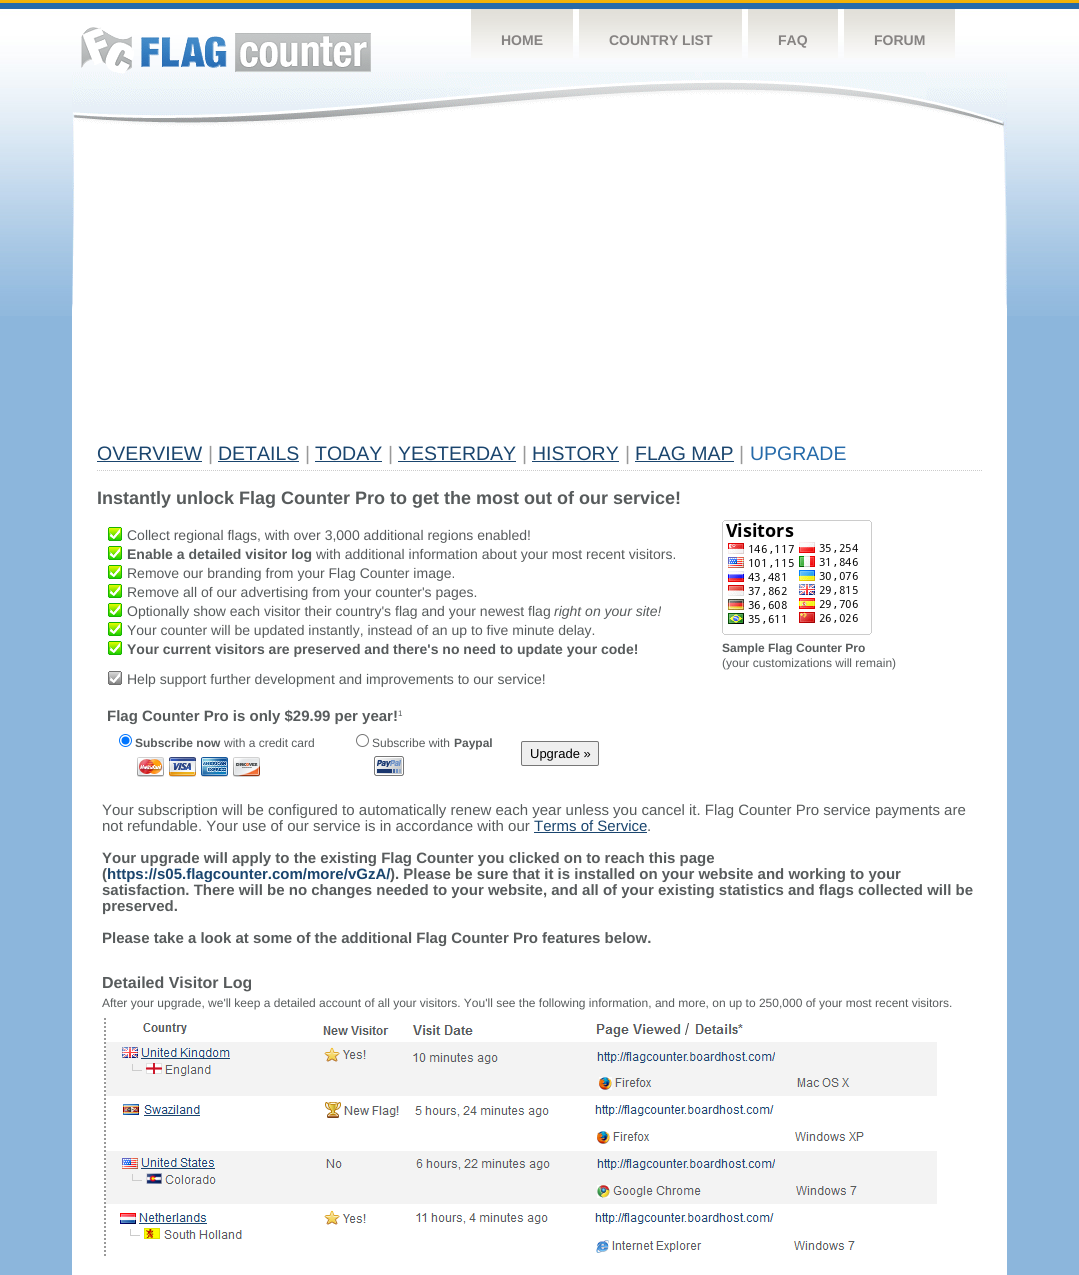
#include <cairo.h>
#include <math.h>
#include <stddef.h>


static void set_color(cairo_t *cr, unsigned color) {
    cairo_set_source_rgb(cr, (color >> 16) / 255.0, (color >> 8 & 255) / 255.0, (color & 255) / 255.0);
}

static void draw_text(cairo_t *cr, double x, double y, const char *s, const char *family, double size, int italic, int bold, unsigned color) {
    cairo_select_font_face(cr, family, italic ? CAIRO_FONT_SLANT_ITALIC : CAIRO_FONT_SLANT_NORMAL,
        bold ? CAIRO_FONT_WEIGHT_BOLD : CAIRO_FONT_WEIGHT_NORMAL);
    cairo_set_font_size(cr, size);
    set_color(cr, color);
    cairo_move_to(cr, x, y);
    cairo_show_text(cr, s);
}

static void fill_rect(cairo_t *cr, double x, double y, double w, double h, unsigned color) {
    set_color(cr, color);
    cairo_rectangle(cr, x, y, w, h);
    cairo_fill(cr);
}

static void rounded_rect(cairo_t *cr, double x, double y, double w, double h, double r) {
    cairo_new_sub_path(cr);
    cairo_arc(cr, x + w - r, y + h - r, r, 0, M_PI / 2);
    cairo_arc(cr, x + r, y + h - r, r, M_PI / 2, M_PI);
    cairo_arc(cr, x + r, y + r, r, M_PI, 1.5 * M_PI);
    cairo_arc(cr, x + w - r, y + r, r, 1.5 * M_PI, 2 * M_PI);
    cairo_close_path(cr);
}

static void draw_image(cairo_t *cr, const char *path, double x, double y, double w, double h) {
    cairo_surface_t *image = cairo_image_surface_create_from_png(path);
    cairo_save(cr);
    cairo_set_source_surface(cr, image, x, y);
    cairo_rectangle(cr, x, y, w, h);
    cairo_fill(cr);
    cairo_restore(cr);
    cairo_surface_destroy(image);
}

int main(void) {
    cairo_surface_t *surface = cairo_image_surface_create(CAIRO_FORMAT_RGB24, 1079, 1275);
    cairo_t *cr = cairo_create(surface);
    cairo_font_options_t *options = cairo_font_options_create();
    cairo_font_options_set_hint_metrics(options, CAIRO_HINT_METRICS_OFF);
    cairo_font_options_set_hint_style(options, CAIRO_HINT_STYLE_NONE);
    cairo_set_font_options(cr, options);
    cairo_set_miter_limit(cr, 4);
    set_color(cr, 0x8CB6DC);
    cairo_paint(cr);
    draw_image(cr, "assets/img1.png", 0, 0, 1079, 316);
    draw_image(cr, "assets/img2.png", 81, 27, 290, 45);
    draw_image(cr, "assets/img3.png", 471, 9, 102, 49);
    draw_text(cr, 501, 45, "HOME", "Liberation Sans", 14, 0, 1, 0x868382);
    draw_image(cr, "assets/img4.png", 579, 9, 163, 49);
    draw_text(cr, 609, 45, "COUNTRY LIST", "Liberation Sans", 14, 0, 1, 0x868382);
    draw_image(cr, "assets/img5.png", 748, 9, 90, 49);
    draw_text(cr, 778, 45, "FAQ", "Liberation Sans", 14, 0, 1, 0x868382);
    draw_image(cr, "assets/img6.png", 844, 9, 111, 49);
    draw_text(cr, 874, 45, "FORUM", "Liberation Sans", 14, 0, 1, 0x868382);
    fill_rect(cr, 72, 309, 935, 966, 0xFFFFFF);
    draw_image(cr, "assets/img7.png", 72, 72, 935, 237);
    cairo_new_path(cr);
    cairo_move_to(cr, 97, 470.5);
    cairo_line_to(cr, 982, 470.5);
    set_color(cr, 0xCCCCCC);
    cairo_set_line_width(cr, 1);
    cairo_set_dash(cr, (double[]){1, 1}, 2, 0);
    cairo_stroke(cr);
    draw_text(cr, 97, 460, "OVERVIEW", "Liberation Sans", 19.5, 0, 0, 0x1A456E);
    fill_rect(cr, 97, 461, 105, 1, 0x1A456E);
    draw_text(cr, 208, 460, "|", "Liberation Sans", 19.5, 0, 0, 0x999999);
    draw_text(cr, 218, 460, "DETAILS", "Liberation Sans", 19.5, 0, 0, 0x1A456E);
    fill_rect(cr, 218, 461, 81, 1, 0x1A456E);
    draw_text(cr, 305, 460, "|", "Liberation Sans", 19.5, 0, 0, 0x999999);
    draw_text(cr, 315, 460, "TODAY", "Liberation Sans", 19.5, 0, 0, 0x1A456E);
    fill_rect(cr, 315, 461, 67, 1, 0x1A456E);
    draw_text(cr, 388, 460, "|", "Liberation Sans", 19.5, 0, 0, 0x999999);
    draw_text(cr, 398, 460, "YESTERDAY", "Liberation Sans", 19.5, 0, 0, 0x1A456E);
    fill_rect(cr, 398, 461, 118, 1, 0x1A456E);
    draw_text(cr, 522, 460, "|", "Liberation Sans", 19.5, 0, 0, 0x999999);
    draw_text(cr, 532, 460, "HISTORY", "Liberation Sans", 19.5, 0, 0, 0x1A456E);
    fill_rect(cr, 532, 461, 87, 1, 0x1A456E);
    draw_text(cr, 625, 460, "|", "Liberation Sans", 19.5, 0, 0, 0x999999);
    draw_text(cr, 635, 460, "FLAG MAP", "Liberation Sans", 19.5, 0, 0, 0x1A456E);
    fill_rect(cr, 635, 461, 99, 1, 0x1A456E);
    draw_text(cr, 739, 460, "|", "Liberation Sans", 19.5, 0, 0, 0x999999);
    draw_text(cr, 750, 460, "UPGRADE", "Liberation Sans", 19.5, 0, 0, 0x266BAA);
    draw_text(cr, 97, 504, "Instantly unlock Flag Counter Pro to get the most out of our service!", "Liberation Sans", 18, 0, 1, 0x575B5C);
    draw_image(cr, "assets/img8.png", 108, 527, 14, 14);
    draw_text(cr, 127, 540, "Collect regional flags, with over 3,000 additional regions enabled!", "Liberation Sans", 14, 0, 0, 0x575B5C);
    draw_image(cr, "assets/img8.png", 108, 546, 14, 14);
    draw_text(cr, 127, 559, "Enable a detailed visitor log", "Liberation Sans", 14, 0, 1, 0x575B5C);
    draw_text(cr, 316, 559, "with additional information about your most recent visitors.", "Liberation Sans", 14, 0, 0, 0x575B5C);
    draw_image(cr, "assets/img8.png", 108, 565, 14, 14);
    draw_text(cr, 127, 578, "Remove our branding from your Flag Counter image.", "Liberation Sans", 14, 0, 0, 0x575B5C);
    draw_image(cr, "assets/img8.png", 108, 584, 14, 14);
    draw_text(cr, 127, 597, "Remove all of our advertising from your counter's pages.", "Liberation Sans", 14, 0, 0, 0x575B5C);
    draw_image(cr, "assets/img8.png", 108, 603, 14, 14);
    draw_text(cr, 127, 616, "Optionally show each visitor their country's flag and your newest flag", "Liberation Sans", 14, 0, 0, 0x575B5C);
    draw_text(cr, 554, 616, "right on your site!", "Liberation Sans", 14, 1, 0, 0x575B5C);
    draw_image(cr, "assets/img8.png", 108, 622, 14, 14);
    draw_text(cr, 127, 635, "Your counter will be updated instantly, instead of an up to five minute delay.", "Liberation Sans", 14, 0, 0, 0x575B5C);
    draw_image(cr, "assets/img8.png", 108, 641, 14, 14);
    draw_text(cr, 127, 654, "Your current visitors are preserved and there's no need to update your code!", "Liberation Sans", 14, 0, 1, 0x575B5C);
    draw_image(cr, "assets/img9.png", 108, 671, 14, 14);
    draw_text(cr, 127, 684, "Help support further development and improvements to our service!", "Liberation Sans", 14, 0, 0, 0x575B5C);
    draw_text(cr, 107, 721, "Flag Counter Pro is only $29.99 per year!", "Liberation Sans", 15, 0, 1, 0x575B5C);
    draw_text(cr, 398, 716, "1", "Liberation Sans", 8, 0, 0, 0x575B5C);
    cairo_new_path(cr);
    cairo_arc(cr, 125.5, 740.5, 6, 0, 2 * M_PI);
    set_color(cr, 0x0075FF);
    cairo_set_dash(cr, NULL, 0, 0);
    cairo_stroke(cr);
    cairo_arc(cr, 125.5, 740.5, 4, 0, 2 * M_PI);
    cairo_fill(cr);
    draw_text(cr, 135, 747, "Subscribe now", "Liberation Sans", 12, 0, 1, 0x575B5C);
    draw_text(cr, 224, 747, "with a credit card", "Liberation Sans", 12, 0, 0, 0x575B5C);
    draw_image(cr, "assets/img10.png", 137, 757, 27, 20);
    draw_image(cr, "assets/img11.png", 169, 757, 27, 20);
    draw_image(cr, "assets/img12.png", 201, 757, 27, 20);
    draw_image(cr, "assets/img13.png", 233, 757, 27, 20);
    cairo_arc(cr, 362.5, 740.5, 6, 0, 2 * M_PI);
    set_color(cr, 0x767676);
    cairo_stroke(cr);
    draw_text(cr, 372, 747, "Subscribe with", "Liberation Sans", 12, 0, 0, 0x575B5C);
    draw_text(cr, 454, 747, "Paypal", "Liberation Sans", 12, 0, 1, 0x575B5C);
    draw_image(cr, "assets/img14.png", 374, 756, 30, 20);
    set_color(cr, 0xEFEFEF);
    rounded_rect(cr, 521.5, 741.5, 77, 24, 1.5);
    cairo_fill_preserve(cr);
    set_color(cr, 0x767676);
    cairo_stroke(cr);
    draw_text(cr, 530, 758, "Upgrade »", "Liberation Sans", 13, 0, 0, 0x000000);
    draw_image(cr, "assets/img15.png", 722, 520, 150, 115);
    draw_text(cr, 722, 652, "Sample Flag Counter Pro", "Liberation Sans", 12, 0, 1, 0x575B5C);
    draw_text(cr, 722, 667, "(your customizations will remain)", "Liberation Sans", 12, 0, 0, 0x575B5C);
    draw_text(cr, 102, 815, "Your subscription will be configured to automatically renew each year unless you cancel it. Flag Counter Pro service payments are", "Liberation Sans", 15, 0, 0, 0x575B5C);
    draw_text(cr, 102, 831, "not refundable. Your use of our service is in accordance with our", "Liberation Sans", 15, 0, 0, 0x575B5C);
    draw_text(cr, 534, 831, "Terms of Service", "Liberation Sans", 15, 0, 0, 0x1A456E);
    draw_text(cr, 647, 831, ".", "Liberation Sans", 15, 0, 0, 0x575B5C);
    fill_rect(cr, 534, 832, 113, 1, 0x1A456E);
    draw_text(cr, 102, 863, "Your upgrade will apply to the existing Flag Counter you clicked on to reach this page", "Liberation Sans", 15, 0, 1, 0x575B5C);
    draw_text(cr, 102, 879, "(", "Liberation Sans", 15, 0, 1, 0x575B5C);
    draw_text(cr, 107, 879, "https://s05.flagcounter.com/more/vGzA/", "Liberation Sans", 15, 0, 1, 0x1A456E);
    draw_text(cr, 390, 879, "). Please be sure that it is installed on your website and working to your", "Liberation Sans", 15, 0, 1, 0x575B5C);
    draw_text(cr, 102, 895, "satisfaction. There will be no changes needed to your website, and all of your existing statistics and flags collected will be", "Liberation Sans", 15, 0, 1, 0x575B5C);
    draw_text(cr, 102, 911, "preserved.", "Liberation Sans", 15, 0, 1, 0x575B5C);
    draw_text(cr, 102, 943, "Please take a look at some of the additional Flag Counter Pro features below.", "Liberation Sans", 15, 0, 1, 0x575B5C);
    draw_text(cr, 102, 988, "Detailed Visitor Log", "Liberation Sans", 16, 0, 1, 0x575B5C);
    draw_text(cr, 102, 1007, "After your upgrade, we'll keep a detailed account of all your visitors. You'll see the following information, and more, on up to 250,000 of your most recent visitors.", "Liberation Sans", 12, 0, 0, 0x575B5C);
    cairo_new_path(cr);
    cairo_move_to(cr, 105, 1018);
    cairo_line_to(cr, 105, 1257);
    set_color(cr, 0x999999);
    cairo_set_line_width(cr, 2);
    cairo_set_dash(cr, (double[]){2, 2}, 2, 0);
    cairo_stroke(cr);
    draw_image(cr, "assets/img16.png", 106, 1023, 831, 230);
    cairo_surface_write_to_png(surface, "output.png");
    cairo_font_options_destroy(options);
    cairo_destroy(cr);
    cairo_surface_destroy(surface);
    return 0;
}
